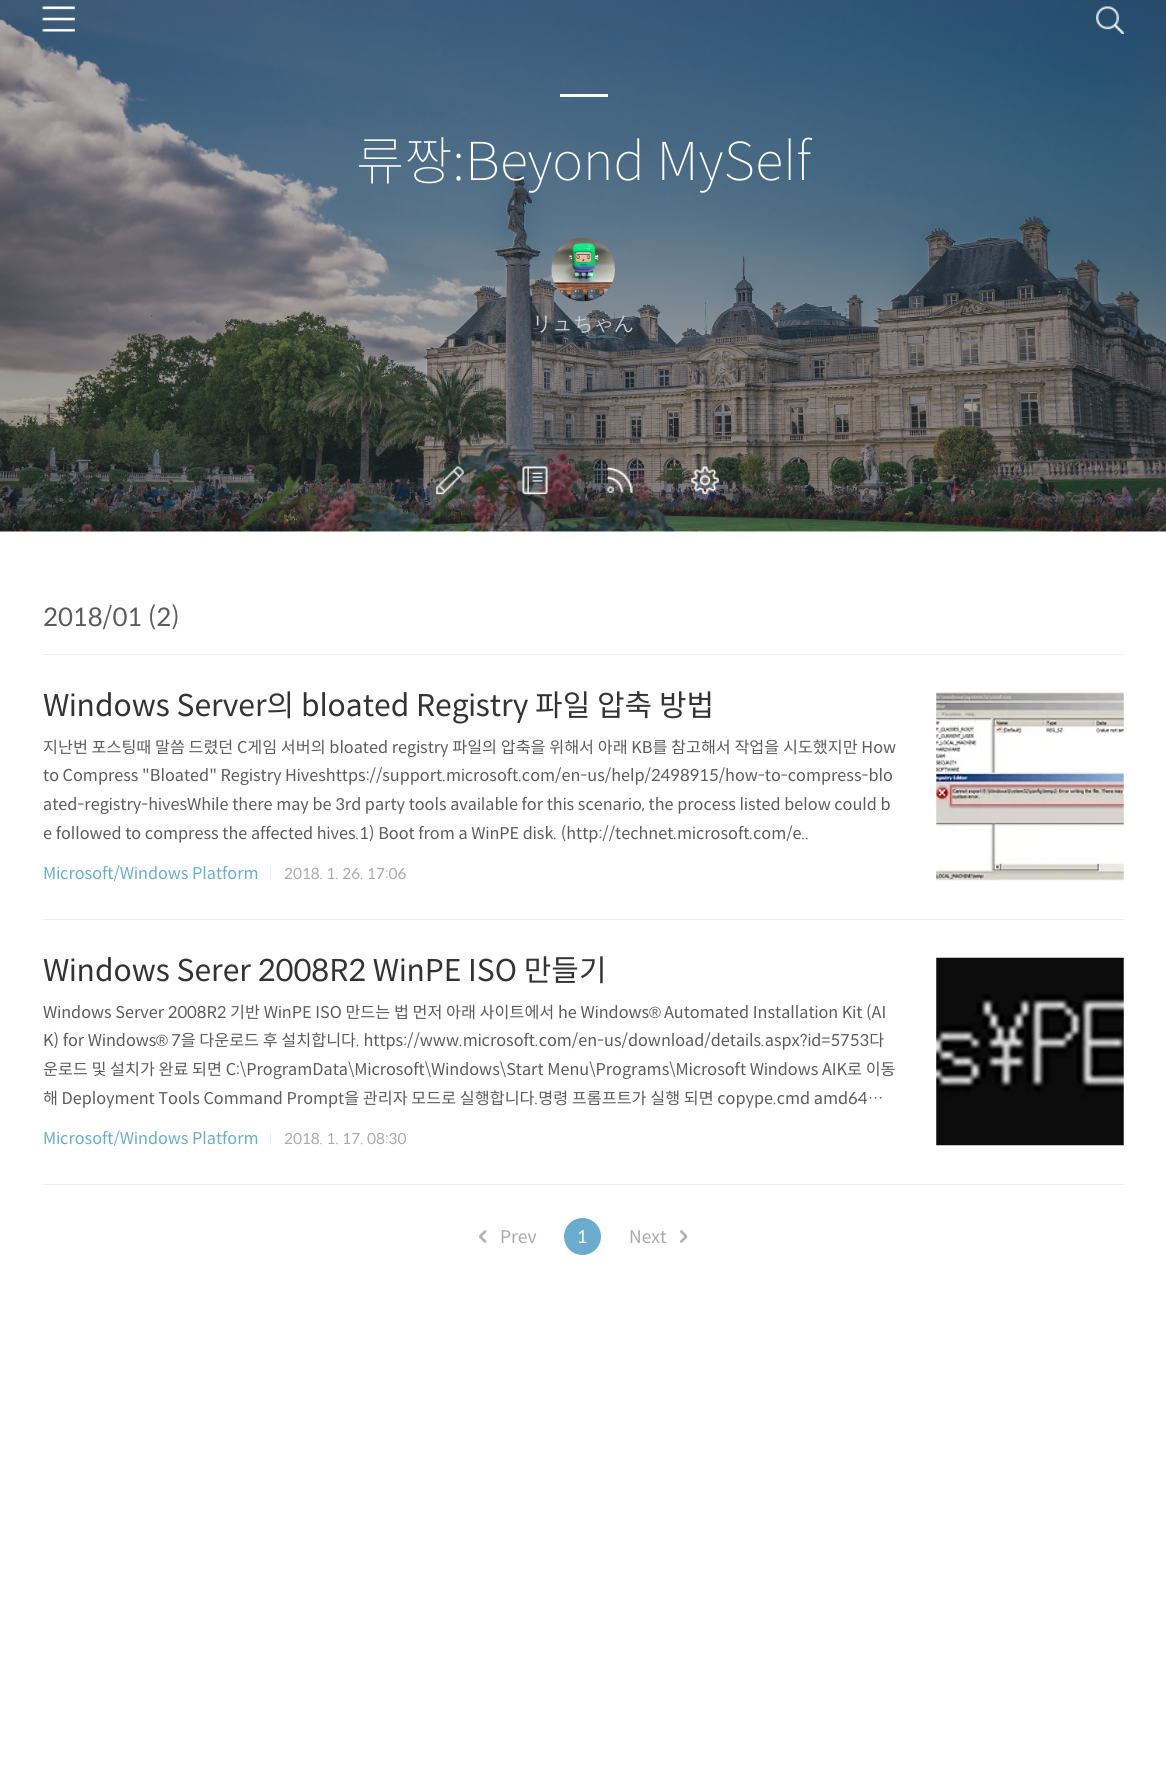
#include <cairo.h>
#include <math.h>
#include <stddef.h>


static void set_color(cairo_t *cr, unsigned color) {
    cairo_set_source_rgb(cr, (color >> 16) / 255.0, (color >> 8 & 255) / 255.0, (color & 255) / 255.0);
}

static void draw_text(cairo_t *cr, double x, double y, const char *s, const char *family, double size, int italic, int bold, unsigned color) {
    cairo_select_font_face(cr, family, italic ? CAIRO_FONT_SLANT_ITALIC : CAIRO_FONT_SLANT_NORMAL,
        bold ? CAIRO_FONT_WEIGHT_BOLD : CAIRO_FONT_WEIGHT_NORMAL);
    cairo_set_font_size(cr, size);
    set_color(cr, color);
    cairo_move_to(cr, x, y);
    cairo_show_text(cr, s);
}

static void fill_rect(cairo_t *cr, double x, double y, double w, double h, unsigned color) {
    set_color(cr, color);
    cairo_rectangle(cr, x, y, w, h);
    cairo_fill(cr);
}

static void draw_image(cairo_t *cr, const char *path, double x, double y, double w, double h) {
    cairo_surface_t *image = cairo_image_surface_create_from_png(path);
    cairo_save(cr);
    cairo_set_source_surface(cr, image, x, y);
    cairo_rectangle(cr, x, y, w, h);
    cairo_fill(cr);
    cairo_restore(cr);
    cairo_surface_destroy(image);
}

int main(void) {
    cairo_surface_t *surface = cairo_image_surface_create(CAIRO_FORMAT_RGB24, 1166, 1778);
    cairo_t *cr = cairo_create(surface);
    cairo_font_options_t *options = cairo_font_options_create();
    cairo_font_options_set_hint_metrics(options, CAIRO_HINT_METRICS_OFF);
    cairo_font_options_set_hint_style(options, CAIRO_HINT_STYLE_NONE);
    cairo_set_font_options(cr, options);
    cairo_set_miter_limit(cr, 4);
    set_color(cr, 0xFFFFFF);
    cairo_paint(cr);
    draw_image(cr, "assets/img4.png", 0, 0, 1166, 532);
    draw_image(cr, "assets/img1.png", 42, 6, 33, 26);
    draw_image(cr, "assets/img2.png", 1096, 6, 28, 28);
    fill_rect(cr, 560, 94, 48, 3, 0xFFFFFF);
    draw_text(cr, 356, 180, "류짱:Beyond MySelf", "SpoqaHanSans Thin", 52.5, 0, 0, 0xFFFFFF);
    draw_image(cr, "assets/img3.png", 551, 238, 64, 64);
    draw_text(cr, 532, 330, "リュちゃん", "WenQuanYi Zen Hei Medium", 20, 0, 0, 0xCACCCF);
    draw_image(cr, "assets/img5.png", 436, 466, 28, 29);
    draw_image(cr, "assets/img6.png", 522, 466, 26, 29);
    draw_image(cr, "assets/img7.png", 607, 467, 26, 26);
    draw_image(cr, "assets/img8.png", 691, 466, 28, 29);
    fill_rect(cr, 43, 654, 1081, 1, 0xEFEFEF);
    draw_text(cr, 43, 626, "2018/01 (2)", "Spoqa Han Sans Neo", 25, 0, 0, 0x5C5C5C);
    fill_rect(cr, 43, 919, 1081, 1, 0xEFEFEF);
    draw_text(cr, 43, 716, "Windows Server의 bloated Registry 파일 압축 방법", "Spoqa Han Sans Neo", 30, 0, 0, 0x333333);
    draw_text(cr, 43, 753, "지난번 포스팅때 말씀 드렸던 C게임 서버의 bloated registry 파일의 압축을 위해서 아래 KB를 참고해서 작업을 시도했지만 How", "Spoqa Han Sans Neo", 16.25, 0, 0, 0x5C5C5C);
    draw_text(cr, 43, 781, "to Compress \"Bloated\" Registry Hiveshttps://support.microsoft.com/en-us/help/2498915/how-to-compress-blo", "Spoqa Han Sans Neo", 16.25, 0, 0, 0x5C5C5C);
    draw_text(cr, 43, 810, "ated-registry-hivesWhile there may be 3rd party tools available for this scenario, the process listed below could b", "Spoqa Han Sans Neo", 16.25, 0, 0, 0x5C5C5C);
    draw_text(cr, 43, 839, "e followed to compress the affected hives.1) Boot from a WinPE disk. (http://technet.microsoft.com/e..", "Spoqa Han Sans Neo", 16.25, 0, 0, 0x5C5C5C);
    draw_image(cr, "assets/img9.png", 936, 692, 188, 189);
    draw_text(cr, 43, 879, "Microsoft/Windows Platform", "Spoqa Han Sans Neo", 16.25, 0, 0, 0x6BACCE);
    fill_rect(cr, 270, 868, 1, 11, 0xEBEBEB);
    draw_text(cr, 284, 879, "2018. 1. 26. 17:06", "Spoqa Han Sans Neo", 15, 0, 0, 0xAAAAAA);
    fill_rect(cr, 43, 1184, 1081, 1, 0xEFEFEF);
    draw_text(cr, 43, 981, "Windows Serer 2008R2 WinPE ISO 만들기", "Spoqa Han Sans Neo", 30, 0, 0, 0x333333);
    draw_text(cr, 43, 1018, "Windows Server 2008R2 기반 WinPE ISO 만드는 법 먼저 아래 사이트에서 he Windows", "Spoqa Han Sans Neo", 16.25, 0, 0, 0x5C5C5C);
    draw_text(cr, 649, 1018, "®", "Liberation Sans", 16.25, 0, 0, 0x5C5C5C);
    draw_text(cr, 664, 1018, "Automated Installation Kit (AI", "Spoqa Han Sans Neo", 16.25, 0, 0, 0x5C5C5C);
    draw_text(cr, 43, 1046, "K) for Windows", "Spoqa Han Sans Neo", 16.25, 0, 0, 0x5C5C5C);
    draw_text(cr, 156, 1046, "®", "Liberation Sans", 16.25, 0, 0, 0x5C5C5C);
    draw_text(cr, 171, 1046, "7을 다운로드 후 설치합니다. https://www.microsoft.com/en-us/download/details.aspx?id=5753다", "Spoqa Han Sans Neo", 16.25, 0, 0, 0x5C5C5C);
    draw_text(cr, 43, 1075, "운로드 및 설치가 완료 되면 C:\\ProgramData\\Microsoft\\Windows\\Start Menu\\Programs\\Microsoft Windows AIK로 이동", "Spoqa Han Sans Neo", 16.25, 0, 0, 0x5C5C5C);
    draw_text(cr, 43, 1104, "해 Deployment Tools Command Prompt을 관리자 모드로 실행합니다.명령 프롬프트가 실행 되면 copype.cmd amd64…", "Spoqa Han Sans Neo", 16.25, 0, 0, 0x5C5C5C);
    draw_image(cr, "assets/img10.png", 936, 957, 188, 189);
    draw_text(cr, 43, 1144, "Microsoft/Windows Platform", "Spoqa Han Sans Neo", 16.25, 0, 0, 0x6BACCE);
    fill_rect(cr, 270, 1133, 1, 11, 0xEBEBEB);
    draw_text(cr, 284, 1144, "2018. 1. 17. 08:30", "Spoqa Han Sans Neo", 15, 0, 0, 0xAAAAAA);
    draw_image(cr, "assets/img11.png", 479, 1230, 8, 13);
    draw_text(cr, 500, 1243, "Prev", "Spoqa Han Sans Neo", 17.5, 0, 0, 0xAAAAAA);
    set_color(cr, 0x6BACCE);
    cairo_new_path(cr);
    cairo_arc(cr, 582.5, 1236.5, 18.5, 0, 2 * M_PI);
    cairo_fill(cr);
    draw_text(cr, 577, 1243, "1", "Spoqa Han Sans Neo", 17.5, 0, 0, 0xFFFFFF);
    draw_text(cr, 629, 1243, "Next", "Spoqa Han Sans Neo", 17.5, 0, 0, 0xAAAAAA);
    draw_image(cr, "assets/img12.png", 680, 1230, 8, 13);
    cairo_surface_write_to_png(surface, "output.png");
    cairo_font_options_destroy(options);
    cairo_destroy(cr);
    cairo_surface_destroy(surface);
    return 0;
}
